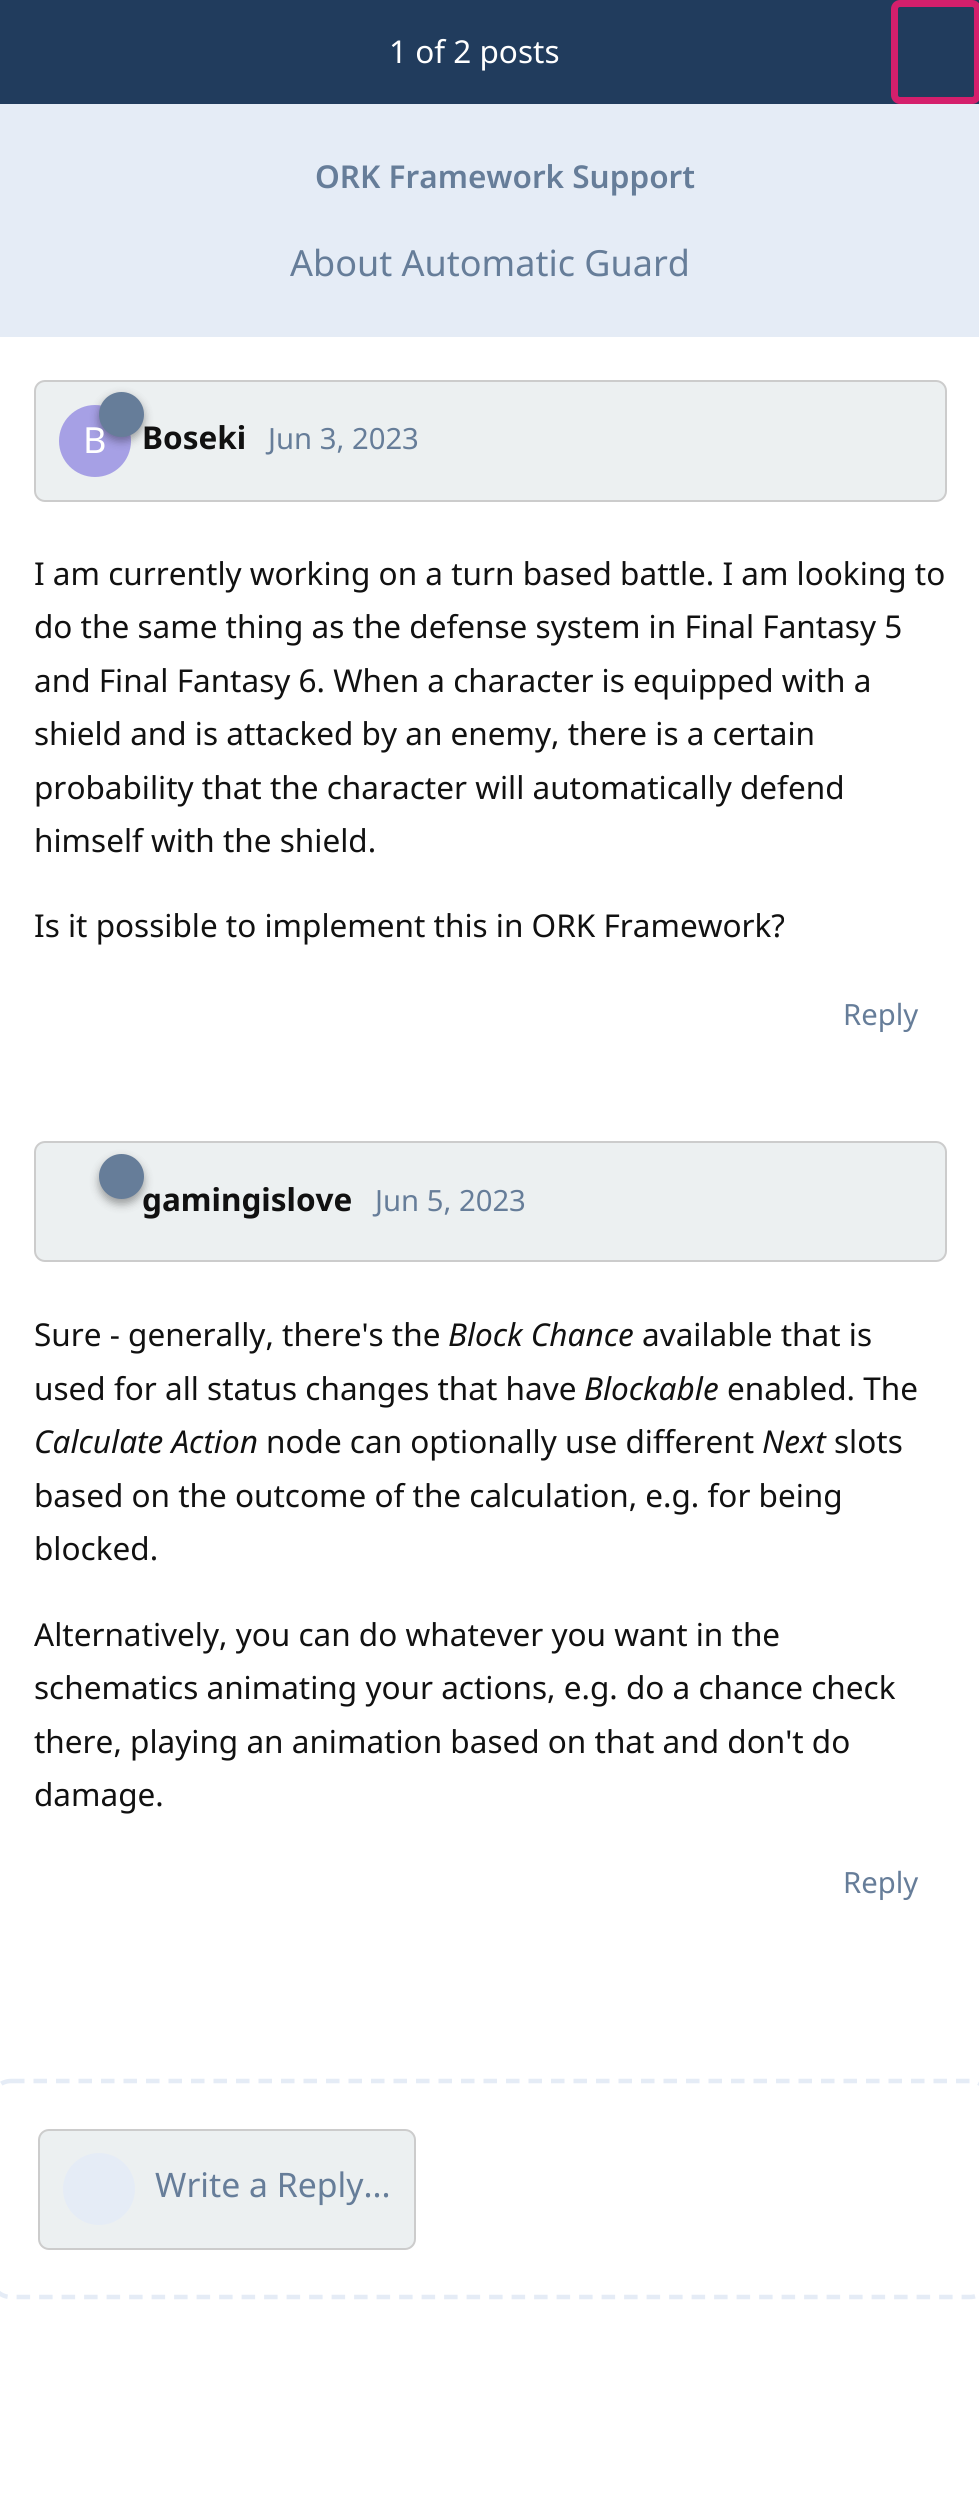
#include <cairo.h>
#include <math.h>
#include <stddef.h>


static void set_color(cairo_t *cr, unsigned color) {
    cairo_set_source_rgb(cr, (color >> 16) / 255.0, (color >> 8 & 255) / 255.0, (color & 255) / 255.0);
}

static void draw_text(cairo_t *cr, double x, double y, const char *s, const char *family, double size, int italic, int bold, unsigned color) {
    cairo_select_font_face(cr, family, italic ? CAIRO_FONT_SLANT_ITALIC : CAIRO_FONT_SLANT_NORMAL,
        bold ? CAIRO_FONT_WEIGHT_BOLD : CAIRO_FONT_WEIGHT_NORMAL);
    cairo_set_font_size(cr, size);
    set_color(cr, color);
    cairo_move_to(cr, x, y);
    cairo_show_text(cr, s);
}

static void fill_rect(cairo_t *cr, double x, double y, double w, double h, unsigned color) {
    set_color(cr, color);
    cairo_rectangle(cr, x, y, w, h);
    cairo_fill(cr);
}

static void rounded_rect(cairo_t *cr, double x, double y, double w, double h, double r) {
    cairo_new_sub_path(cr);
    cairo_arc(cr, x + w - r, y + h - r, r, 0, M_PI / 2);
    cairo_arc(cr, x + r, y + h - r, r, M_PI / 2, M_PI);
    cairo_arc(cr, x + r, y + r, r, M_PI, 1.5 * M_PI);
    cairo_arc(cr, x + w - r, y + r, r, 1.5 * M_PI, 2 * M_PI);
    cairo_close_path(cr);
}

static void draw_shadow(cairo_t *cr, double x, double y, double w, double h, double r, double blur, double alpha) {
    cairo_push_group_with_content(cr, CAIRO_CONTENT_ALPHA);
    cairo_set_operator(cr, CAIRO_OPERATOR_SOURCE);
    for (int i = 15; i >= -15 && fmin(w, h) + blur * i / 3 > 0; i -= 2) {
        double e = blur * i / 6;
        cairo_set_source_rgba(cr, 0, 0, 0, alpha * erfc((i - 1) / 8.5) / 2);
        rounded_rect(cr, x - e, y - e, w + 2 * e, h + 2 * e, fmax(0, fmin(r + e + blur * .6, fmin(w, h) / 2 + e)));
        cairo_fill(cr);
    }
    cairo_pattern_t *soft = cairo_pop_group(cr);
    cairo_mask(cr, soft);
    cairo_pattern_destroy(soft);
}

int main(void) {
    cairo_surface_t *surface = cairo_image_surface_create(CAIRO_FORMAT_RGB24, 979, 2511);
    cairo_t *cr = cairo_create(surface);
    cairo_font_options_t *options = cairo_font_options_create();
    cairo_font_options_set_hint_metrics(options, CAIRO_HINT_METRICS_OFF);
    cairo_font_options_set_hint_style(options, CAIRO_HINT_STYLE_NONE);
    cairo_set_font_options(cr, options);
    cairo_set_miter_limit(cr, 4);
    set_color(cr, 0xFFFFFF);
    cairo_paint(cr);
    fill_rect(cr, 0, 0, 979, 104, 0x213C5D);
    draw_text(cr, 389, 63, "1 of 2 posts", "Noto Sans", 31.5, 0, 0, 0xFFFFFF);
    rounded_rect(cr, 894.5, 3.5, 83, 97, 5.5);
    set_color(cr, 0xD41F6C);
    cairo_set_line_width(cr, 7);
    cairo_stroke(cr);
    set_color(cr, 0xECF0F1);
    rounded_rect(cr, 35, 381, 911, 120, 10);
    cairo_fill_preserve(cr);
    set_color(cr, 0xCCCCCC);
    cairo_set_line_width(cr, 2);
    cairo_stroke(cr);
    set_color(cr, 0xA6A0E5);
    cairo_arc(cr, 95, 441, 36, 0, 2 * M_PI);
    cairo_fill(cr);
    set_color(cr, 0x000000);
    draw_shadow(cr, 99, 396, 45, 45, 22.5, 4.5, 0.35);
    draw_text(cr, 83, 453, "B", "Noto Sans", 36, 0, 0, 0xFFFFFF);
    set_color(cr, 0x667D99);
    cairo_new_path(cr);
    cairo_arc(cr, 121.5, 414.5, 22.5, 0, 2 * M_PI);
    cairo_fill(cr);
    draw_text(cr, 142, 449, "Boseki", "Noto Sans", 31.5, 0, 1, 0x111111);
    draw_text(cr, 268, 449, "Jun 3, 2023", "Noto Sans", 29.25, 0, 0, 0x667D99);
    draw_text(cr, 34, 585, "I am currently working on a turn based battle. I am looking to", "Noto Sans", 31.5, 0, 0, 0x111111);
    draw_text(cr, 34, 638, "do the same thing as the defense system in Final Fantasy 5", "Noto Sans", 31.5, 0, 0, 0x111111);
    draw_text(cr, 34, 692, "and Final Fantasy 6. When a character is equipped with a", "Noto Sans", 31.5, 0, 0, 0x111111);
    draw_text(cr, 34, 745, "shield and is attacked by an enemy, there is a certain", "Noto Sans", 31.5, 0, 0, 0x111111);
    draw_text(cr, 34, 799, "probability that the character will automatically defend", "Noto Sans", 31.5, 0, 0, 0x111111);
    draw_text(cr, 34, 852, "himself with the shield.", "Noto Sans", 31.5, 0, 0, 0x111111);
    draw_text(cr, 34, 937, "Is it possible to implement this in ORK Framework?", "Noto Sans", 31.5, 0, 0, 0x111111);
    draw_text(cr, 843, 1025, "Reply", "Noto Sans", 29.25, 0, 0, 0x667D99);
    set_color(cr, 0xECF0F1);
    rounded_rect(cr, 35, 1142, 911, 119, 10);
    cairo_fill_preserve(cr);
    set_color(cr, 0xCCCCCC);
    cairo_stroke(cr);
    set_color(cr, 0x000000);
    draw_shadow(cr, 99, 1159, 45, 45, 22.5, 4.5, 0.35);
    draw_text(cr, 142, 1211, "gamingislove", "Noto Sans", 31.5, 0, 1, 0x111111);
    set_color(cr, 0x667D99);
    cairo_new_path(cr);
    cairo_arc(cr, 121.5, 1176.5, 22.5, 0, 2 * M_PI);
    cairo_fill(cr);
    draw_text(cr, 375, 1211, "Jun 5, 2023", "Noto Sans", 29.25, 0, 0, 0x667D99);
    draw_text(cr, 34, 1346, "Sure - generally, there's the", "Noto Sans", 31.5, 0, 0, 0x111111);
    draw_text(cr, 448, 1346, "Block Chance", "Noto Sans", 31.5, 1, 0, 0x111111);
    draw_text(cr, 642, 1346, "available that is", "Noto Sans", 31.5, 0, 0, 0x111111);
    draw_text(cr, 34, 1400, "used for all status changes that have", "Noto Sans", 31.5, 0, 0, 0x111111);
    draw_text(cr, 584, 1400, "Blockable", "Noto Sans", 31.5, 1, 0, 0x111111);
    draw_text(cr, 727, 1400, "enabled. The", "Noto Sans", 31.5, 0, 0, 0x111111);
    draw_text(cr, 34, 1453, "Calculate Action", "Noto Sans", 31.5, 1, 0, 0x111111);
    draw_text(cr, 266, 1453, "node can optionally use different", "Noto Sans", 31.5, 0, 0, 0x111111);
    draw_text(cr, 762, 1453, "Next", "Noto Sans", 31.5, 1, 0, 0x111111);
    draw_text(cr, 834, 1453, "slots", "Noto Sans", 31.5, 0, 0, 0x111111);
    draw_text(cr, 34, 1507, "based on the outcome of the calculation, e.g. for being", "Noto Sans", 31.5, 0, 0, 0x111111);
    draw_text(cr, 34, 1560, "blocked.", "Noto Sans", 31.5, 0, 0, 0x111111);
    draw_text(cr, 34, 1646, "Alternatively, you can do whatever you want in the", "Noto Sans", 31.5, 0, 0, 0x111111);
    draw_text(cr, 34, 1699, "schematics animating your actions, e.g. do a chance check", "Noto Sans", 31.5, 0, 0, 0x111111);
    draw_text(cr, 34, 1753, "there, playing an animation based on that and don't do", "Noto Sans", 31.5, 0, 0, 0x111111);
    draw_text(cr, 34, 1806, "damage.", "Noto Sans", 31.5, 0, 0, 0x111111);
    draw_text(cr, 843, 1893, "Reply", "Noto Sans", 29.25, 0, 0, 0x667D99);
    cairo_new_path(cr);
    cairo_move_to(cr, 11, 2081);
    cairo_line_to(cr, 970, 2081);
    cairo_curve_to(cr, 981, 2081, 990, 2090.5, 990, 2101.5);
    cairo_line_to(cr, 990, 2277);
    cairo_curve_to(cr, 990, 2288, 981, 2297, 970, 2297);
    cairo_line_to(cr, 11, 2297);
    cairo_curve_to(cr, 0, 2297, -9, 2288, -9, 2277);
    cairo_line_to(cr, -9, 2101.5);
    cairo_curve_to(cr, -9, 2090.5, 0, 2081, 11, 2081);
    cairo_close_path(cr);
    set_color(cr, 0xE5ECF6);
    cairo_set_line_width(cr, 4.5);
    cairo_set_dash(cr, (double[]){13.5, 9}, 2, 0);
    cairo_stroke(cr);
    set_color(cr, 0xECF0F1);
    rounded_rect(cr, 39, 2130, 376, 119, 10);
    cairo_fill_preserve(cr);
    set_color(cr, 0xCCCCCC);
    cairo_set_line_width(cr, 2);
    cairo_set_dash(cr, NULL, 0, 0);
    cairo_stroke(cr);
    set_color(cr, 0xE5ECF6);
    cairo_arc(cr, 99, 2189, 36, 0, 2 * M_PI);
    cairo_fill(cr);
    draw_text(cr, 155, 2197, "Write a Reply...", "Noto Sans", 33.75, 0, 0, 0x667D99);
    fill_rect(cr, 0, 104, 979, 233, 0xE5ECF6);
    draw_text(cr, 315, 188, "ORK Framework Support", "Noto Sans SemiBold", 31.5, 0, 0, 0x667D99);
    draw_text(cr, 290, 276, "About Automatic Guard", "Noto Sans", 36, 0, 0, 0x667D99);
    cairo_surface_write_to_png(surface, "output.png");
    cairo_font_options_destroy(options);
    cairo_destroy(cr);
    cairo_surface_destroy(surface);
    return 0;
}
